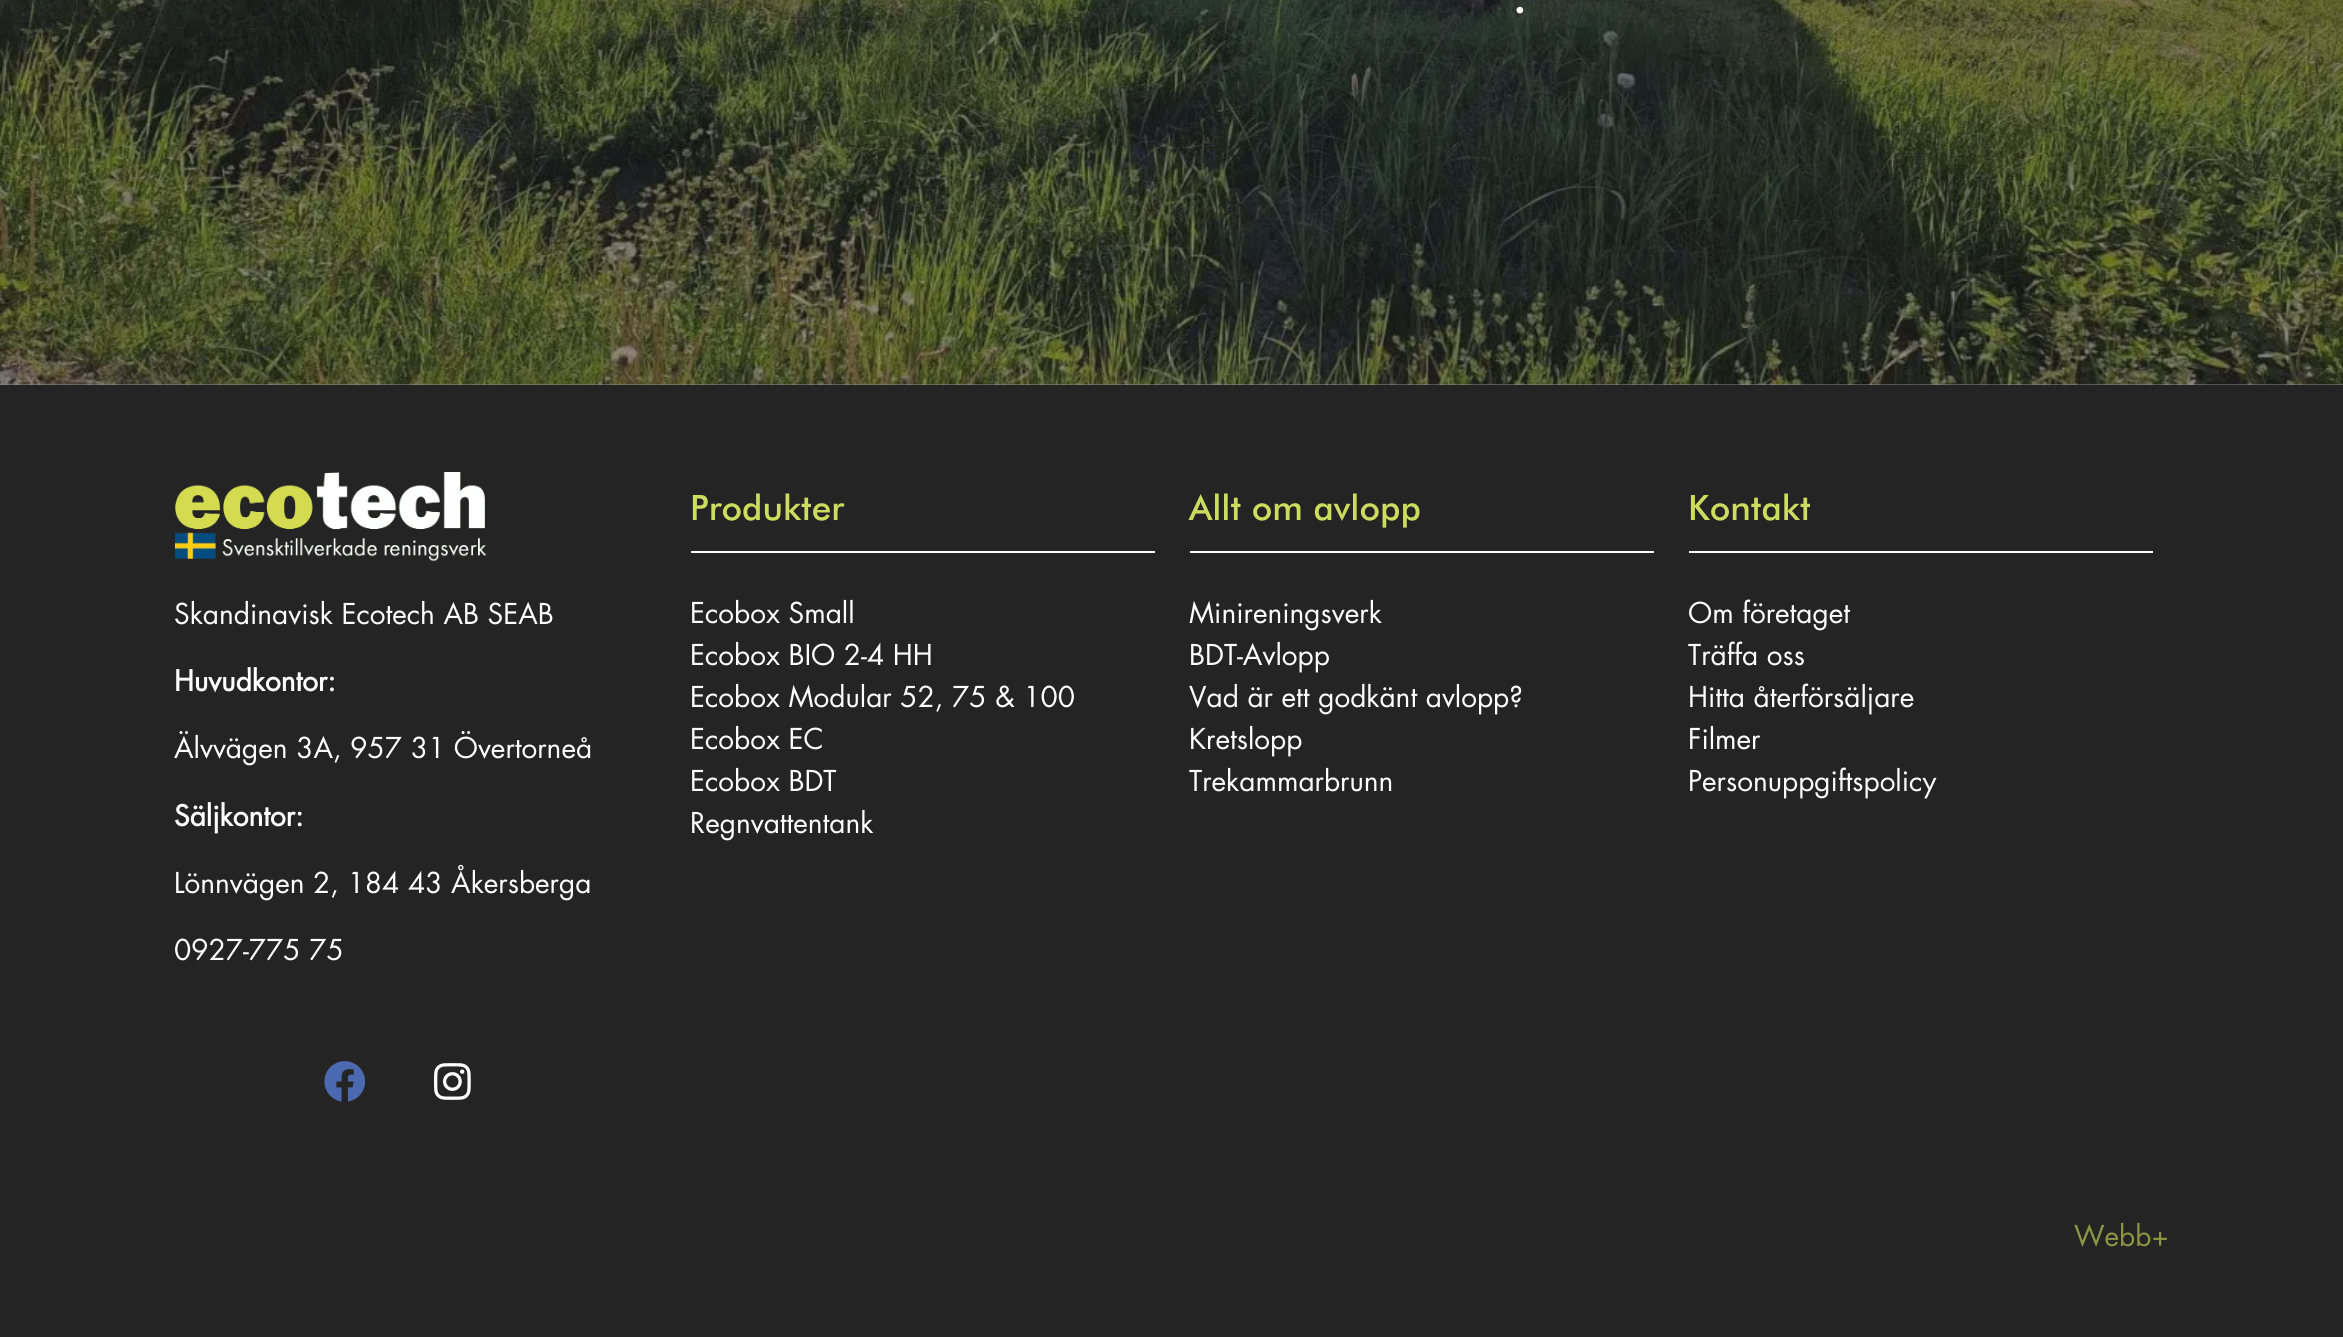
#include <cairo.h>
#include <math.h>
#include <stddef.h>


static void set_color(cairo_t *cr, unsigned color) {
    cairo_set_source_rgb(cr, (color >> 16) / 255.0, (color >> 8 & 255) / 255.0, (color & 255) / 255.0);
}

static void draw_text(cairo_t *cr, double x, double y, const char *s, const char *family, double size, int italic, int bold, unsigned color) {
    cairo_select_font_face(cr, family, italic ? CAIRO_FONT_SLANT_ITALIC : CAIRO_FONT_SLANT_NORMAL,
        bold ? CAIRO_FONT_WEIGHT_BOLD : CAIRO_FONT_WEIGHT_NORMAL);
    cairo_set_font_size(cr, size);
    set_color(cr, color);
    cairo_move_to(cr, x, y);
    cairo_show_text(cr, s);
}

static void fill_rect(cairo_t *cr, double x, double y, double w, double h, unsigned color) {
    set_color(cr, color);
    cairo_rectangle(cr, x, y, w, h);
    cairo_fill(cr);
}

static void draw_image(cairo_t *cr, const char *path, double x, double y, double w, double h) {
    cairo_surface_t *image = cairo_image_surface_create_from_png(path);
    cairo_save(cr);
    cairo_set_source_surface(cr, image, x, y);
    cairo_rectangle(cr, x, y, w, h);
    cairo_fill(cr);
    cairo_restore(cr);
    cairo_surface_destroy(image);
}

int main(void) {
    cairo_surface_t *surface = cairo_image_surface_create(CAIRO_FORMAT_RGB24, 2343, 1337);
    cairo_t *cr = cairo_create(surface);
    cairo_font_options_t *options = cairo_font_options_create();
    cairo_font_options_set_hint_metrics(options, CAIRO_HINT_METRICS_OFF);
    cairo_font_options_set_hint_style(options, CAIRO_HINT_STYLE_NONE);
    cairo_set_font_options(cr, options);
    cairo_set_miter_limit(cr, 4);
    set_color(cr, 0x8C8D8E);
    cairo_paint(cr);
    draw_image(cr, "assets/img1.png", 0, 0, 2343, 385);
    draw_text(cr, 1512, 13, ".", "Futura Medium", 52, 0, 0, 0xFFFFFF);
    fill_rect(cr, 0, 385, 2343, 952, 0x242424);
    draw_image(cr, "assets/img2.png", 175, 472, 312, 90);
    draw_text(cr, 174, 624, "Skandinavisk Ecotech AB SEAB", "Futura", 28, 0, 0, 0xFFFFFF);
    draw_text(cr, 174, 691, "Huvudkontor:", "Futura", 28, 0, 1, 0xFFFFFF);
    draw_text(cr, 174, 758, "Älvvägen 3A, 957 31 Övertorneå", "Futura", 28, 0, 0, 0xFFFFFF);
    draw_text(cr, 174, 826, "Säljkontor:", "Futura", 28, 0, 1, 0xFFFFFF);
    draw_text(cr, 174, 893, "Lönnvägen 2, 184 43 Åkersberga", "Futura", 28, 0, 0, 0xFFFFFF);
    draw_text(cr, 174, 960, "0927-775 75", "Futura", 28, 0, 0, 0xFFFFFF);
    draw_image(cr, "assets/img3.png", 324, 1061, 42, 41);
    draw_image(cr, "assets/img4.png", 434, 1063, 37, 37);
    draw_text(cr, 690, 520, "Produkter", "Futura Medium", 35, 0, 0, 0xCBDD5F);
    fill_rect(cr, 691, 551, 464, 2, 0xFCFCFC);
    draw_text(cr, 690, 623, "Ecobox Small", "Futura", 28, 0, 0, 0xFFFFFF);
    draw_text(cr, 690, 665, "Ecobox BIO 2-4 HH", "Futura", 28, 0, 0, 0xFFFFFF);
    draw_text(cr, 690, 707, "Ecobox Modular 52, 75 & 100", "Futura", 28, 0, 0, 0xFFFFFF);
    draw_text(cr, 690, 749, "Ecobox EC", "Futura", 28, 0, 0, 0xFFFFFF);
    draw_text(cr, 690, 791, "Ecobox BDT", "Futura", 28, 0, 0, 0xFFFFFF);
    draw_text(cr, 690, 833, "Regnvattentank", "Futura", 28, 0, 0, 0xFFFFFF);
    draw_text(cr, 1189, 520, "Allt om avlopp", "Futura Medium", 35, 0, 0, 0xCBDD5F);
    fill_rect(cr, 1190, 551, 464, 2, 0xFCFCFC);
    draw_text(cr, 1189, 623, "Minireningsverk", "Futura", 28, 0, 0, 0xFFFFFF);
    draw_text(cr, 1189, 665, "BDT-Avlopp", "Futura", 28, 0, 0, 0xFFFFFF);
    draw_text(cr, 1189, 707, "Vad är ett godkänt avlopp?", "Futura", 28, 0, 0, 0xFFFFFF);
    draw_text(cr, 1189, 749, "Kretslopp", "Futura", 28, 0, 0, 0xFFFFFF);
    draw_text(cr, 1189, 791, "Trekammarbrunn", "Futura", 28, 0, 0, 0xFFFFFF);
    draw_text(cr, 1688, 520, "Kontakt", "Futura Medium", 35, 0, 0, 0xCBDD5F);
    fill_rect(cr, 1689, 551, 464, 2, 0xFCFCFC);
    draw_text(cr, 1688, 623, "Om företaget", "Futura", 28, 0, 0, 0xFFFFFF);
    draw_text(cr, 1688, 665, "Träffa oss", "Futura", 28, 0, 0, 0xFFFFFF);
    draw_text(cr, 1688, 707, "Hitta återförsäljare", "Futura", 28, 0, 0, 0xFFFFFF);
    draw_text(cr, 1688, 749, "Filmer", "Futura", 28, 0, 0, 0xFFFFFF);
    draw_text(cr, 1688, 791, "Personuppgiftspolicy", "Futura", 28, 0, 0, 0xFFFFFF);
    draw_text(cr, 2074, 1246, "Webb+", "Futura", 28, 0, 0, 0x8A9643);
    cairo_surface_write_to_png(surface, "output.png");
    cairo_font_options_destroy(options);
    cairo_destroy(cr);
    cairo_surface_destroy(surface);
    return 0;
}
